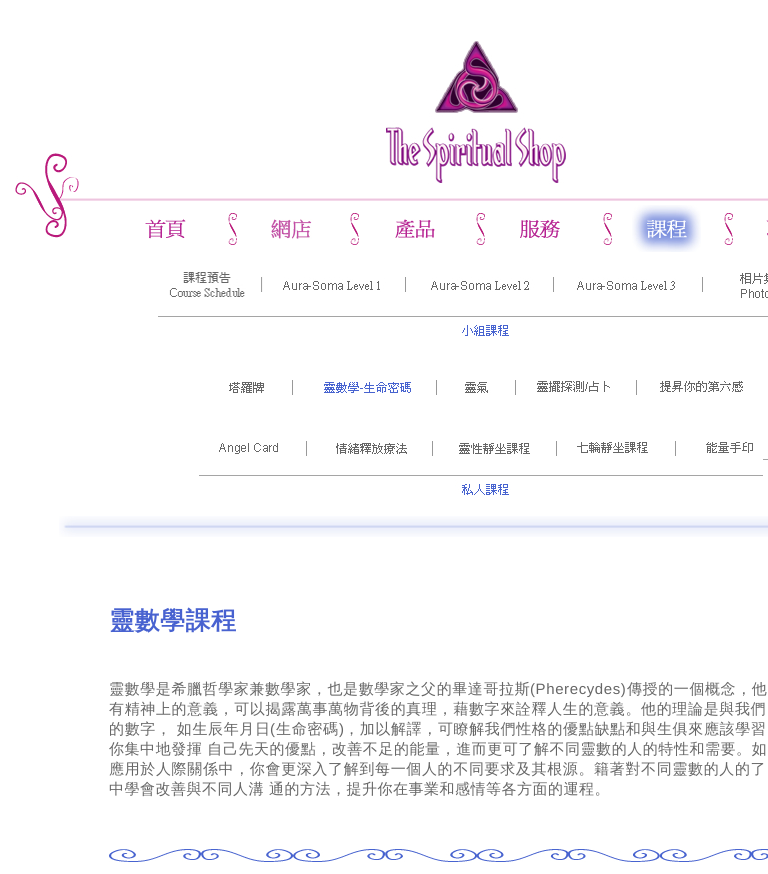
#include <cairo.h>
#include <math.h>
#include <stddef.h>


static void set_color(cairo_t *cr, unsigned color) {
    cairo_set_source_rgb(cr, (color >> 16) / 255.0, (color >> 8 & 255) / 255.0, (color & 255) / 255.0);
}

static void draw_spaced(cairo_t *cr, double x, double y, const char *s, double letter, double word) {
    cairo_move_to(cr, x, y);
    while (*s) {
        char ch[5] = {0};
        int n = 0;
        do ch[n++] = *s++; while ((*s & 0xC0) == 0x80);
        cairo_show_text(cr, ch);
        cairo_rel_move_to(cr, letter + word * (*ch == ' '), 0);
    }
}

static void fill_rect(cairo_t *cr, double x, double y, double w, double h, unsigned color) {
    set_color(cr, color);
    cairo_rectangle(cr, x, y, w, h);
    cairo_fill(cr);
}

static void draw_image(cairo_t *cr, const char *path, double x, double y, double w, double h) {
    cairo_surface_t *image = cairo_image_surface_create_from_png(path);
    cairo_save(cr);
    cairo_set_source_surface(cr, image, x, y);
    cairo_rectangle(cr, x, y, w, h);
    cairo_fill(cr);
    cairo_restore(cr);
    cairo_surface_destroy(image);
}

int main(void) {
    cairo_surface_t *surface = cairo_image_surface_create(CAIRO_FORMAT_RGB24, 768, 874);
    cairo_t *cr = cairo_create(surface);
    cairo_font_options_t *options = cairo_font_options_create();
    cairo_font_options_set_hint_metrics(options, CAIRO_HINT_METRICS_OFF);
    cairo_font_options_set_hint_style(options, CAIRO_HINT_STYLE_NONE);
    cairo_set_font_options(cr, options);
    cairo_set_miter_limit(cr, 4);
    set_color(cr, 0xFFFFFF);
    cairo_paint(cr);
    draw_image(cr, "assets/img1.png", 15, 153, 93, 50);
    draw_image(cr, "assets/img2.png", 108, 41, 660, 160);
    draw_image(cr, "assets/img3.png", 38, 203, 29, 35);
    draw_image(cr, "assets/img4.png", 145, 219, 41, 20);
    draw_image(cr, "assets/img5.png", 228, 213, 9, 32);
    draw_image(cr, "assets/img6.png", 271, 219, 41, 20);
    draw_image(cr, "assets/img5.png", 350, 213, 9, 32);
    draw_image(cr, "assets/img7.png", 395, 219, 40, 19);
    draw_image(cr, "assets/img5.png", 476, 213, 9, 32);
    draw_image(cr, "assets/img8.png", 520, 219, 40, 19);
    draw_image(cr, "assets/img5.png", 603, 213, 9, 32);
    draw_image(cr, "assets/img9.png", 632, 205, 69, 47);
    draw_image(cr, "assets/img5.png", 724, 213, 9, 32);
    draw_image(cr, "assets/img10.png", 766, 220, 2, 16);
    draw_image(cr, "assets/img11.png", 169, 272, 94, 25);
    draw_image(cr, "assets/img12.png", 283, 277, 123, 15);
    draw_image(cr, "assets/img13.png", 431, 277, 123, 15);
    draw_image(cr, "assets/img14.png", 577, 277, 126, 15);
    draw_image(cr, "assets/img15.png", 740, 273, 28, 25);
    draw_image(cr, "assets/img16.png", 158, 316, 610, 20);
    draw_image(cr, "assets/img17.png", 229, 380, 64, 15);
    draw_image(cr, "assets/img18.png", 324, 380, 113, 15);
    draw_image(cr, "assets/img19.png", 465, 380, 51, 15);
    draw_image(cr, "assets/img20.png", 537, 380, 100, 15);
    draw_image(cr, "assets/img21.png", 660, 381, 83, 11);
    fill_rect(cr, 763, 459, 5, 1, 0xA5A5A5);
    draw_image(cr, "assets/img22.png", 219, 441, 88, 15);
    draw_image(cr, "assets/img23.png", 336, 441, 97, 15);
    draw_image(cr, "assets/img24.png", 459, 441, 98, 15);
    draw_image(cr, "assets/img25.png", 577, 441, 99, 15);
    draw_image(cr, "assets/img26.png", 706, 442, 47, 11);
    draw_image(cr, "assets/img27.png", 199, 475, 564, 20);
    draw_image(cr, "assets/img28.png", 59, 516, 709, 21);
    cairo_select_font_face(cr, "WenQuanYi Zen Hei", CAIRO_FONT_SLANT_NORMAL, CAIRO_FONT_WEIGHT_BOLD);
    cairo_set_font_size(cr, 25);
    set_color(cr, 0x4862D0);
    draw_spaced(cr, 109, 629, "靈數學課程", 0.5, 0);
    cairo_select_font_face(cr, "WenQuanYi Zen Hei Medium", CAIRO_FONT_SLANT_NORMAL, CAIRO_FONT_WEIGHT_NORMAL);
    cairo_set_font_size(cr, 15);
    set_color(cr, 0x666666);
    draw_spaced(cr, 109, 694, "靈數學是希臘哲學家兼數學家，也是數學家之父的畢達哥拉斯", 0.6, 0);
    cairo_select_font_face(cr, "Liberation Sans", CAIRO_FONT_SLANT_NORMAL, CAIRO_FONT_WEIGHT_NORMAL);
    draw_spaced(cr, 530, 694, "(Pherecydes)", 0.6, 0);
    cairo_select_font_face(cr, "WenQuanYi Zen Hei Medium", CAIRO_FONT_SLANT_NORMAL, CAIRO_FONT_WEIGHT_NORMAL);
    draw_spaced(cr, 627, 694, "傳授的一個概念，他", 0.6, 0);
    draw_spaced(cr, 109, 714, "有精神上的意義，可以揭露萬事萬物背後的真理，藉數字來詮釋人生的意義。他的理論是與我們", 0.65, 0);
    draw_spaced(cr, 109, 734, "的數字， 如生辰年月日", 0.65, 0);
    cairo_select_font_face(cr, "Liberation Sans", CAIRO_FONT_SLANT_NORMAL, CAIRO_FONT_WEIGHT_NORMAL);
    draw_spaced(cr, 270, 734, "(", 0.65, 0);
    cairo_select_font_face(cr, "WenQuanYi Zen Hei Medium", CAIRO_FONT_SLANT_NORMAL, CAIRO_FONT_WEIGHT_NORMAL);
    draw_spaced(cr, 276, 734, "生命密碼", 0.65, 0);
    cairo_select_font_face(cr, "Liberation Sans", CAIRO_FONT_SLANT_NORMAL, CAIRO_FONT_WEIGHT_NORMAL);
    draw_spaced(cr, 339, 734, ")", 0.65, 0);
    cairo_select_font_face(cr, "WenQuanYi Zen Hei Medium", CAIRO_FONT_SLANT_NORMAL, CAIRO_FONT_WEIGHT_NORMAL);
    draw_spaced(cr, 344, 734, "，加以解譯，可瞭解我們性格的優點缺點和與生俱來應該學習", 0.65, 0);
    draw_spaced(cr, 109, 754, "你集中地發揮 自己先天的優點，改善不足的能量，進而更可了解不同靈數的人的特性和需要。如", 0.55, 0);
    draw_spaced(cr, 109, 774, "應用於人際關係中，你會更深入了解到每一個人的不同要求及其根源。籍著對不同靈數的人的了", 0.65, 0);
    draw_spaced(cr, 109, 794, "中學會改善與不同人溝 通的方法，提升你在事業和感情等各方面的運程。", 0.5, 0);
    draw_image(cr, "assets/img29.png", 109, 849, 659, 13);
    cairo_surface_write_to_png(surface, "output.png");
    cairo_font_options_destroy(options);
    cairo_destroy(cr);
    cairo_surface_destroy(surface);
    return 0;
}
